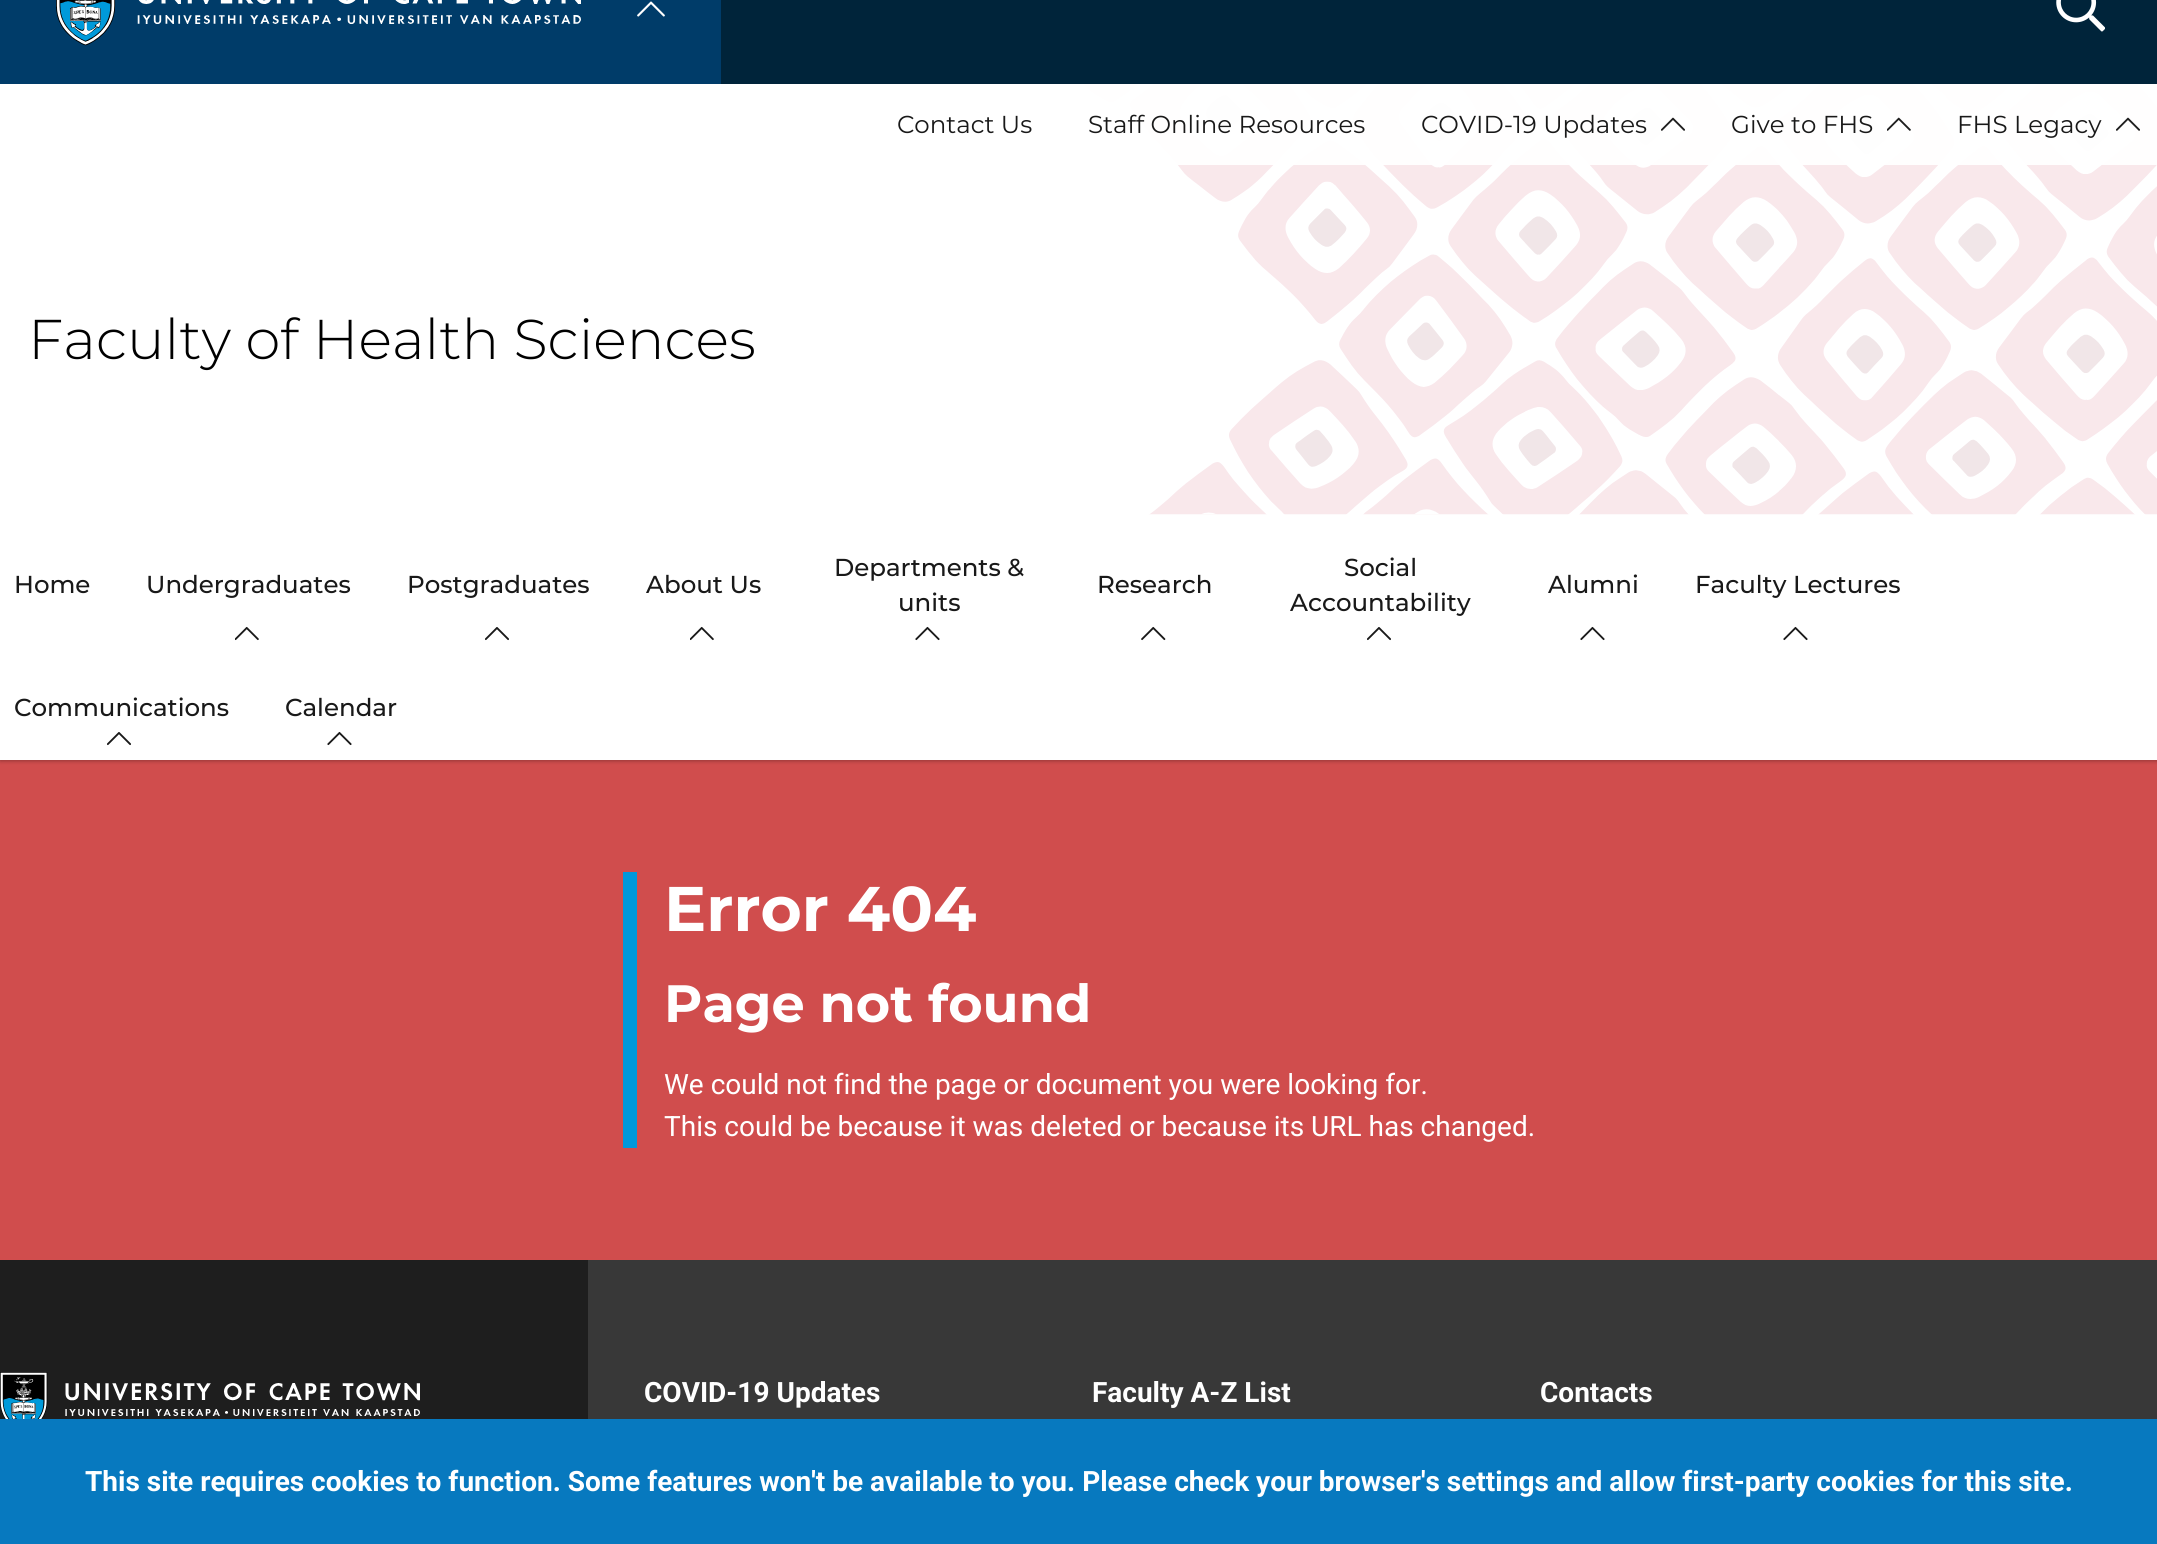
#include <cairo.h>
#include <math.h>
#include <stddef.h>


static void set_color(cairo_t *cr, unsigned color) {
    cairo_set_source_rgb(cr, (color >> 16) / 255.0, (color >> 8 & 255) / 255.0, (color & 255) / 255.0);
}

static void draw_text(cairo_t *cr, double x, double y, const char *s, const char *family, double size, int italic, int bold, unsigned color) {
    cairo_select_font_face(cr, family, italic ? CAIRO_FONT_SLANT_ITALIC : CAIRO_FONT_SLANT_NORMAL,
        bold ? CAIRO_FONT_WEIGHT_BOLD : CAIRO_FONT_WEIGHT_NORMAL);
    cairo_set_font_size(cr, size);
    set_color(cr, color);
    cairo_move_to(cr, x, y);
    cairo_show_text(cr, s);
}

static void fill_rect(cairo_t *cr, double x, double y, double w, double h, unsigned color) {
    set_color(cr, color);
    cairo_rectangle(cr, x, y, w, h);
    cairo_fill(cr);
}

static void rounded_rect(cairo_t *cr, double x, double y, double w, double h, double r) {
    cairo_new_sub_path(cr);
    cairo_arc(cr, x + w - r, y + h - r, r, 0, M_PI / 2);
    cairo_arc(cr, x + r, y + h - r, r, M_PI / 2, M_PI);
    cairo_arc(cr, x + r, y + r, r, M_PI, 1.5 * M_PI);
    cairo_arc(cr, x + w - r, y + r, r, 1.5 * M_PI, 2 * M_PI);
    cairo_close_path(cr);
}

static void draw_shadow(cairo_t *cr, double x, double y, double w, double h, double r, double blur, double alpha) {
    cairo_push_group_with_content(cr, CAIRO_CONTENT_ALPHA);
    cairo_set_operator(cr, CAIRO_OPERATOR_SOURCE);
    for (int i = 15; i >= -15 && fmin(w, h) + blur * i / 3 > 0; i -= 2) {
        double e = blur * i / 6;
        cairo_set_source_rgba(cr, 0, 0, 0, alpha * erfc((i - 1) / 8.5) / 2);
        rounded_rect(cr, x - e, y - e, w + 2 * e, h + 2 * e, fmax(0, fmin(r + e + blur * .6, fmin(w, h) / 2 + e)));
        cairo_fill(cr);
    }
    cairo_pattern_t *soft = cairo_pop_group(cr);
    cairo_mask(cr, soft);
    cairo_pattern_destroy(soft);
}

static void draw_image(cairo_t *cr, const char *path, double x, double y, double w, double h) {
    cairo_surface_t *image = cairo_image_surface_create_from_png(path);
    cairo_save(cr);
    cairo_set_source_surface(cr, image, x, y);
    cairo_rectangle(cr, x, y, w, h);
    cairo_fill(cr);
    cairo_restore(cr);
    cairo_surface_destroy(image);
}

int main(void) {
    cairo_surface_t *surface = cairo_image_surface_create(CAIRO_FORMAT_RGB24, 2157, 1544);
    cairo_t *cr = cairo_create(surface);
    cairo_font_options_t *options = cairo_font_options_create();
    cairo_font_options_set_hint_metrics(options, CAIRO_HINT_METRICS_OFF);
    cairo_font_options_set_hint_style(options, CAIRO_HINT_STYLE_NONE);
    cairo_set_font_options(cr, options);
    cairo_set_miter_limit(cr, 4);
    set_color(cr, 0xD04D4D);
    cairo_paint(cr);
    fill_rect(cr, 721, 0, 1436, 84, 0x00243A);
    fill_rect(cr, 0, 0, 721, 84, 0x003C69);
    draw_image(cr, "assets/img1.png", 56, 0, 525, 46);
    draw_image(cr, "assets/img2.png", 637, 1, 28, 16);
    draw_image(cr, "assets/img3.png", 2056, 0, 49, 32);
    set_color(cr, 0x000000);
    draw_shadow(cr, 0, 516, 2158, 245, 0, 2, 0.3);
    fill_rect(cr, 0, 84, 2157, 676, 0xFFFFFF);
    draw_image(cr, "assets/img4.png", 1083, 84, 1074, 431);
    cairo_set_source_rgba(cr, 1, 1, 1, 0.9);
    cairo_rectangle(cr, 1083, 84, 1074, 431);
    cairo_fill(cr);
    cairo_set_source_rgba(cr, 1, 1, 1, 0.95);
    cairo_rectangle(cr, 1083, 84, 1074, 81);
    cairo_fill(cr);
    draw_text(cr, 897, 133, "Contact Us", "Montserrat", 24.5, 0, 0, 0x191919);
    draw_text(cr, 1088, 133, "Staff Online Resources", "Montserrat", 24.5, 0, 0, 0x191919);
    draw_text(cr, 1421, 133, "COVID-19 Updates", "Montserrat", 24.5, 0, 0, 0x191919);
    draw_image(cr, "assets/img5.png", 1661, 117, 24, 14);
    draw_text(cr, 1731, 133, "Give to FHS", "Montserrat", 24.5, 0, 0, 0x191919);
    draw_image(cr, "assets/img6.png", 1887, 117, 24, 14);
    draw_text(cr, 1957, 133, "FHS Legacy", "Montserrat", 24.5, 0, 0, 0x191919);
    draw_image(cr, "assets/img7.png", 2116, 117, 24, 14);
    draw_text(cr, 28, 359, "Faculty of Health Sciences", "Montserrat Light", 56, 0, 0, 0x000000);
    draw_text(cr, 14, 593, "Home", "Montserrat Medium", 24.5, 0, 0, 0x191919);
    draw_text(cr, 146, 593, "Undergraduates", "Montserrat Medium", 24.5, 0, 0, 0x191919);
    draw_image(cr, "assets/img8.png", 235, 626, 24, 15);
    draw_text(cr, 407, 593, "Postgraduates", "Montserrat Medium", 24.5, 0, 0, 0x191919);
    draw_image(cr, "assets/img9.png", 485, 627, 24, 14);
    draw_text(cr, 646, 593, "About Us", "Montserrat Medium", 24.5, 0, 0, 0x191919);
    draw_image(cr, "assets/img8.png", 690, 626, 24, 15);
    draw_text(cr, 834, 576, "Departments &", "Montserrat Medium", 24.5, 0, 0, 0x191919);
    draw_text(cr, 898, 611, "units", "Montserrat Medium", 24.5, 0, 0, 0x191919);
    draw_image(cr, "assets/img10.png", 915, 626, 25, 15);
    draw_text(cr, 1097, 593, "Research", "Montserrat Medium", 24.5, 0, 0, 0x191919);
    draw_image(cr, "assets/img11.png", 1141, 626, 25, 15);
    draw_text(cr, 1344, 576, "Social", "Montserrat Medium", 24.5, 0, 0, 0x191919);
    draw_text(cr, 1290, 611, "Accountability", "Montserrat Medium", 24.5, 0, 0, 0x191919);
    draw_image(cr, "assets/img9.png", 1367, 627, 24, 14);
    draw_text(cr, 1548, 593, "Alumni", "Montserrat Medium", 24.5, 0, 0, 0x191919);
    draw_image(cr, "assets/img10.png", 1580, 626, 25, 15);
    draw_text(cr, 1695, 593, "Faculty Lectures", "Montserrat Medium", 24.5, 0, 0, 0x191919);
    draw_image(cr, "assets/img10.png", 1783, 626, 25, 15);
    draw_text(cr, 14, 716, "Communications", "Montserrat Medium", 24.5, 0, 0, 0x191919);
    draw_image(cr, "assets/img9.png", 107, 732, 24, 14);
    draw_text(cr, 285, 716, "Calendar", "Montserrat Medium", 24.5, 0, 0, 0x191919);
    draw_image(cr, "assets/img10.png", 327, 731, 25, 15);
    fill_rect(cr, 623, 872, 14, 276, 0x0098DB);
    draw_text(cr, 664, 931, "Error 404", "Montserrat", 63, 0, 1, 0xFFFFFF);
    draw_text(cr, 664, 1022, "Page not found", "Montserrat", 52.5, 0, 1, 0xFFFFFF);
    draw_text(cr, 664, 1094, "We could not find the page or document you were looking for.", "Roboto", 28, 0, 0, 0xFFFFFF);
    draw_text(cr, 664, 1136, "This could be because it was deleted or because its URL has changed.", "Roboto", 28, 0, 0, 0xFFFFFF);
    fill_rect(cr, 588, 1260, 1569, 159, 0x383838);
    fill_rect(cr, 0, 1260, 588, 159, 0x1E1E1E);
    draw_image(cr, "assets/img12.png", 0, 1372, 420, 47);
    draw_text(cr, 644, 1402, "COVID-19 Updates", "Roboto", 28, 0, 1, 0xFFFFFF);
    draw_text(cr, 1092, 1402, "Faculty A-Z List", "Roboto", 28, 0, 1, 0xFFFFFF);
    draw_text(cr, 1540, 1402, "Contacts", "Roboto", 28, 0, 1, 0xFFFFFF);
    fill_rect(cr, 0, 1419, 2157, 125, 0x0779BF);
    draw_text(cr, 85, 1491, "This site requires cookies to function. Some features won't be available to you. Please check your browser's settings and allow first-party cookies for this site.", "Roboto", 28, 0, 1, 0xFFFFFF);
    cairo_surface_write_to_png(surface, "output.png");
    cairo_font_options_destroy(options);
    cairo_destroy(cr);
    cairo_surface_destroy(surface);
    return 0;
}
